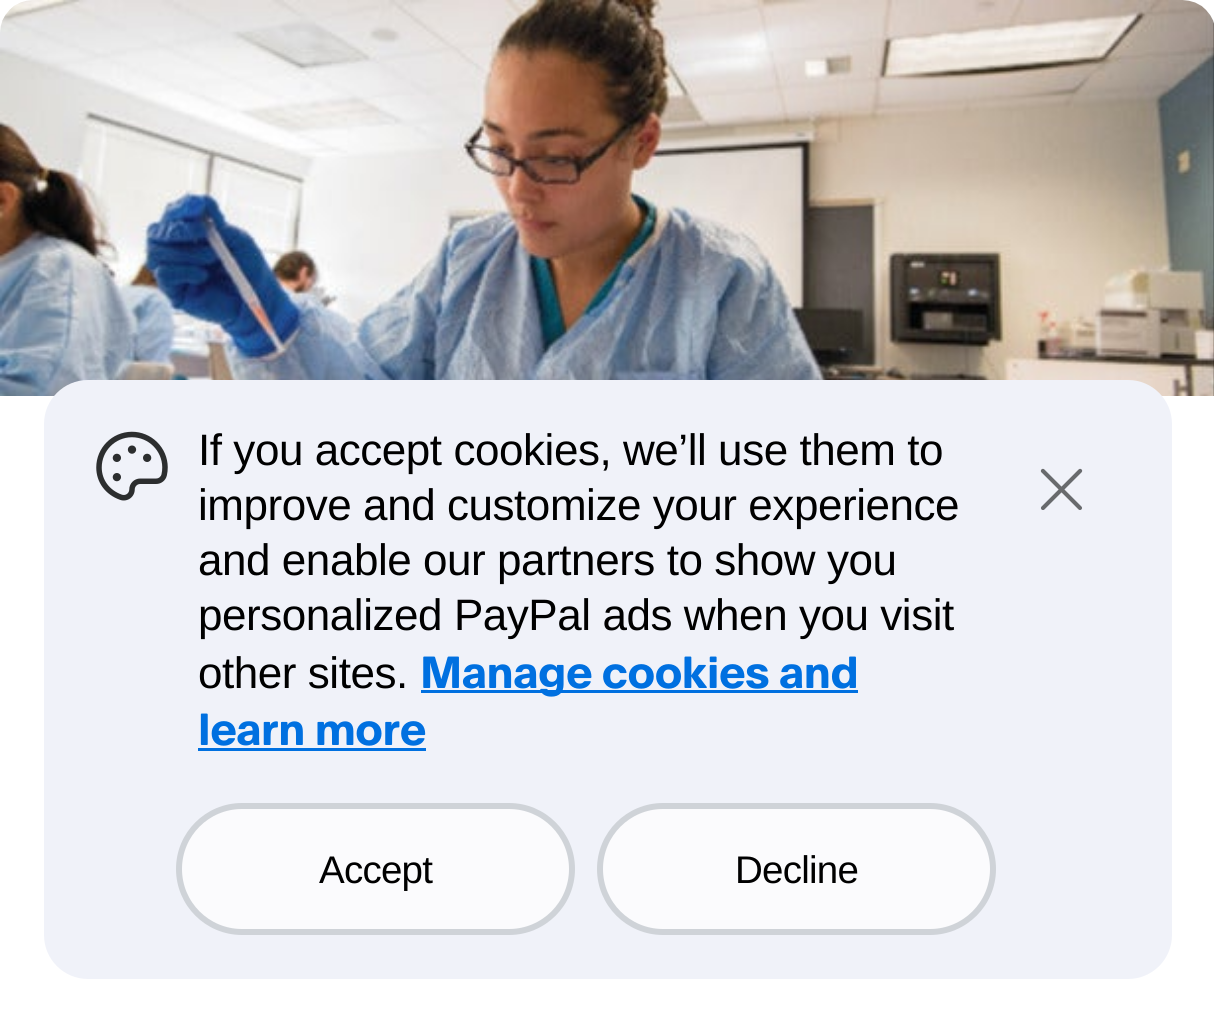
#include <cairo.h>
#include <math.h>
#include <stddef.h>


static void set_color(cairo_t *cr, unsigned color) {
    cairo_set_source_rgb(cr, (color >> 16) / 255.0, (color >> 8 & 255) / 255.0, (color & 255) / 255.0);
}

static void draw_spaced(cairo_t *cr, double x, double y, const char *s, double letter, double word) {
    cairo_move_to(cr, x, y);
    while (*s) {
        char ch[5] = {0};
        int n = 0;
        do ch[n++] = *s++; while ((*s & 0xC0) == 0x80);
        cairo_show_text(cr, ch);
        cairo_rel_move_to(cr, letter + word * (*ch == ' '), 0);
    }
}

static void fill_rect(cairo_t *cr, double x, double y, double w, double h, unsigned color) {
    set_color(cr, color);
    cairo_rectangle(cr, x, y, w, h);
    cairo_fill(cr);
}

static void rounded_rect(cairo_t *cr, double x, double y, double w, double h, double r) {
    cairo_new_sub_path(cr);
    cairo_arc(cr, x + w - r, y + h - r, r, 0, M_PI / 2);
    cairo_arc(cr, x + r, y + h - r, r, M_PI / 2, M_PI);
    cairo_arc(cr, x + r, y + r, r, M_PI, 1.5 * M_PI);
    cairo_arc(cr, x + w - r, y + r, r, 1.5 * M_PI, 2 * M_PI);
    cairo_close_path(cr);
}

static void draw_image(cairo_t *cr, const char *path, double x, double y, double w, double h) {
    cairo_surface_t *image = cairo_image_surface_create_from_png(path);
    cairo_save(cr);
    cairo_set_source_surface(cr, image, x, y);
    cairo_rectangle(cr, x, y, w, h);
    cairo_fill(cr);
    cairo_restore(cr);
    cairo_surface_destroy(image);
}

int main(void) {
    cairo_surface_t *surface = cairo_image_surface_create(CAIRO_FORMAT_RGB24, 1214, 1022);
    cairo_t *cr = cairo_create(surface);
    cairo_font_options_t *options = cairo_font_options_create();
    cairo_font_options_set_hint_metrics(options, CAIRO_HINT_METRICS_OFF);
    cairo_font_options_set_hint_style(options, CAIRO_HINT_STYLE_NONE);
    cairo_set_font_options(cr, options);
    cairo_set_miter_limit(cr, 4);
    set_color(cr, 0xFFFFFF);
    cairo_paint(cr);
    draw_image(cr, "assets/img1.png", 0, 0, 1214, 396);
    set_color(cr, 0xF0F2F9);
    rounded_rect(cr, 44, 380, 1128, 599, 44);
    cairo_fill(cr);
    draw_image(cr, "assets/img2.png", 96, 431, 72, 70);
    cairo_select_font_face(cr, "Liberation Sans", CAIRO_FONT_SLANT_NORMAL, CAIRO_FONT_WEIGHT_NORMAL);
    cairo_set_font_size(cr, 44);
    set_color(cr, 0x000000);
    draw_spaced(cr, 198, 465, "If you accept cookies, we’ll use them to", -0.45, 0);
    draw_spaced(cr, 198, 520, "improve and customize your experience", -0.45, 0);
    draw_spaced(cr, 198, 575, "and enable our partners to show you", -0.45, 0);
    draw_spaced(cr, 198, 630, "personalized PayPal ads when you visit", -0.45, 0);
    draw_spaced(cr, 198, 688, "other sites.", -0.45, 0);
    fill_rect(cr, 421, 690, 437, 3, 0x0070E0);
    cairo_select_font_face(cr, "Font", CAIRO_FONT_SLANT_NORMAL, CAIRO_FONT_WEIGHT_BOLD);
    draw_spaced(cr, 420, 688, "Manage cookies and", -0.45, 0);
    draw_spaced(cr, 198, 745, "learn more", -0.45, 0);
    fill_rect(cr, 198, 748, 228, 3, 0x0070E0);
    set_color(cr, 0xFBFBFD);
    rounded_rect(cr, 179, 806, 393, 126, 63);
    cairo_fill_preserve(cr);
    set_color(cr, 0xCFD3D8);
    cairo_set_line_width(cr, 6);
    cairo_stroke(cr);
    cairo_select_font_face(cr, "Liberation Sans", CAIRO_FONT_SLANT_NORMAL, CAIRO_FONT_WEIGHT_NORMAL);
    cairo_set_font_size(cr, 38.5);
    set_color(cr, 0x000000);
    draw_spaced(cr, 319, 883, "Accept", -0.75, 0);
    set_color(cr, 0xFBFBFD);
    rounded_rect(cr, 600, 806, 393, 126, 63);
    cairo_fill_preserve(cr);
    set_color(cr, 0xCFD3D8);
    cairo_stroke(cr);
    set_color(cr, 0x000000);
    draw_spaced(cr, 735, 883, "Decline", -0.75, 0);
    draw_image(cr, "assets/img3.png", 1040, 468, 43, 42);
    cairo_surface_write_to_png(surface, "output.png");
    cairo_font_options_destroy(options);
    cairo_destroy(cr);
    cairo_surface_destroy(surface);
    return 0;
}
